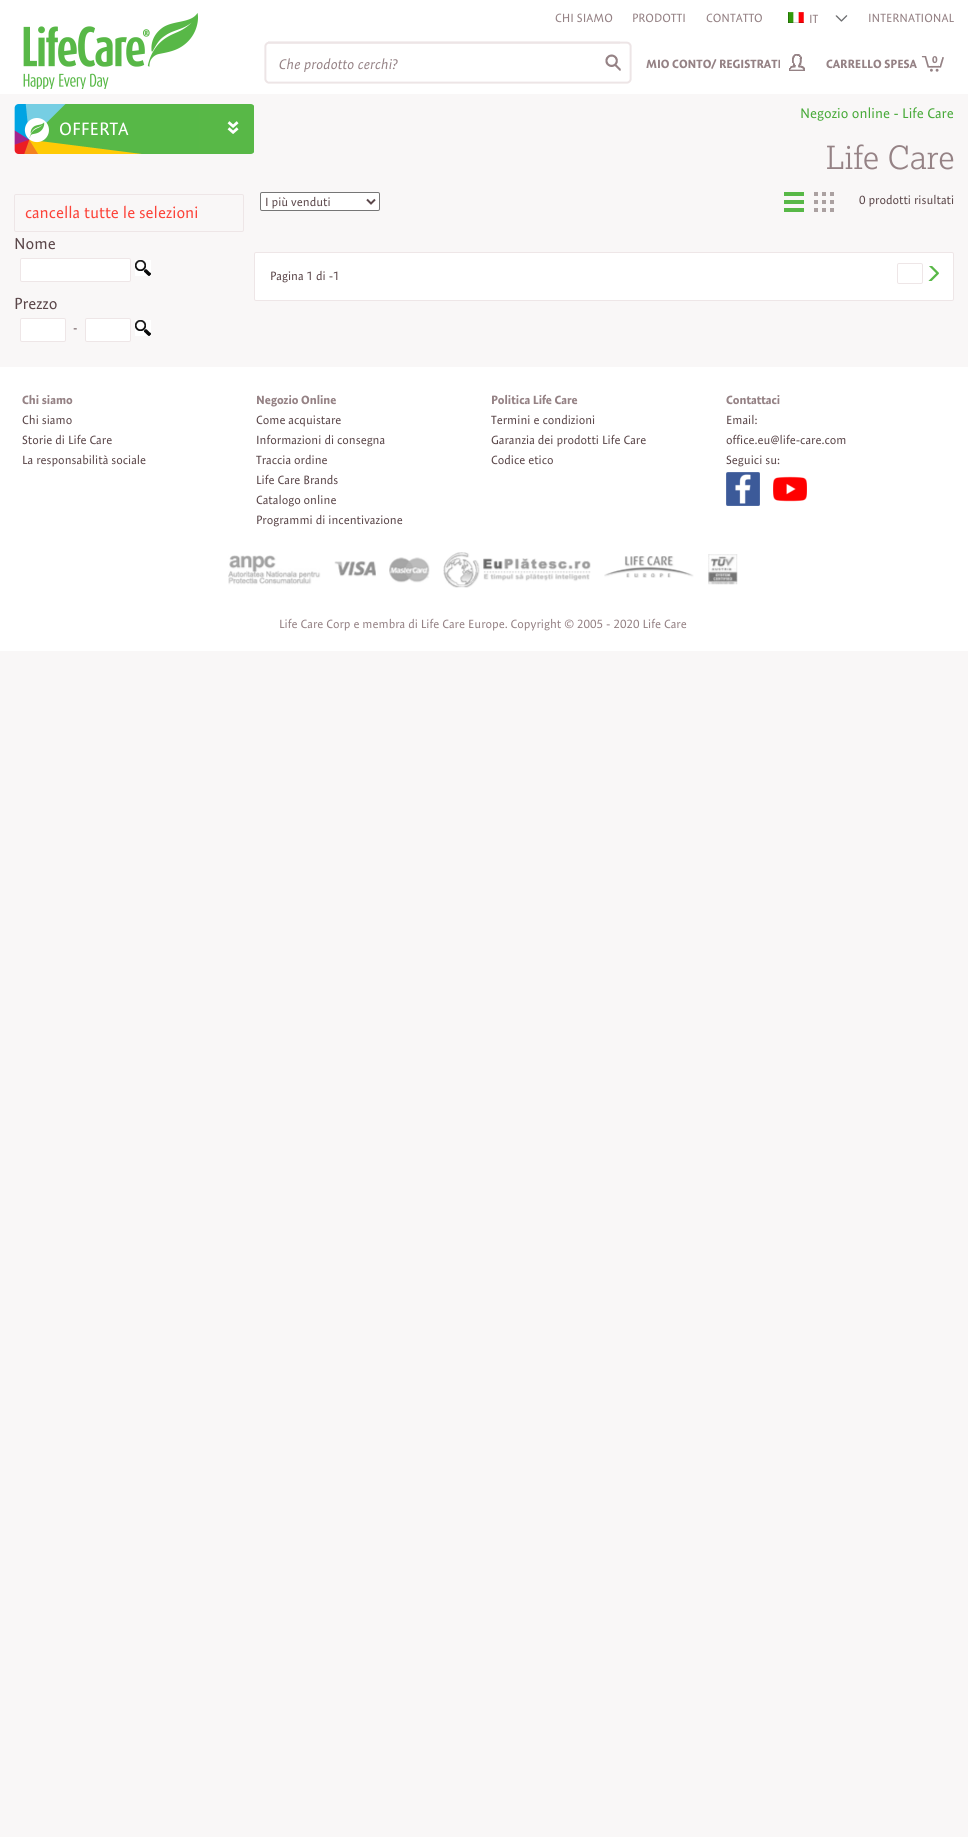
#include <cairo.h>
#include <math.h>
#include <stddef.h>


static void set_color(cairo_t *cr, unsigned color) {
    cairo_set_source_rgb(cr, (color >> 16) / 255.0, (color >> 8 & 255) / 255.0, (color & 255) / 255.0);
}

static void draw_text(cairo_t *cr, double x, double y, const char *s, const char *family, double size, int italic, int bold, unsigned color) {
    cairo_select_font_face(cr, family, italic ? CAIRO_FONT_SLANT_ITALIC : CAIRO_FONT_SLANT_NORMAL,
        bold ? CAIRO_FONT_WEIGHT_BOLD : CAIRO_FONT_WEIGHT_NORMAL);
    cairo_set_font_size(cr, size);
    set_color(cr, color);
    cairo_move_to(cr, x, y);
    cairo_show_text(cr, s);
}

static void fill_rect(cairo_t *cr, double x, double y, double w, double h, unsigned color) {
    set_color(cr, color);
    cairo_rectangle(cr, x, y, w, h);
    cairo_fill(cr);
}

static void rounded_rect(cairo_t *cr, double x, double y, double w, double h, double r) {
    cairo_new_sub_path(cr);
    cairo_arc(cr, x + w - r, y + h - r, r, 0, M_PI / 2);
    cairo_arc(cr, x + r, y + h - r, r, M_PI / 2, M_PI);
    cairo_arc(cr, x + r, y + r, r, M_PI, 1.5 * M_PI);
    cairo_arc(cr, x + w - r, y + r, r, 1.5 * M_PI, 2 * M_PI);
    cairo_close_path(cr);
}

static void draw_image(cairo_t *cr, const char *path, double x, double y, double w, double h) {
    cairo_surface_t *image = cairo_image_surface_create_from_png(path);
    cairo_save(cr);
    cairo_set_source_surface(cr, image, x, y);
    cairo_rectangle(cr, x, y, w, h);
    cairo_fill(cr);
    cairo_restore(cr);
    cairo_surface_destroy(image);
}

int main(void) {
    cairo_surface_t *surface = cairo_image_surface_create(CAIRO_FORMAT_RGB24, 968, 1837);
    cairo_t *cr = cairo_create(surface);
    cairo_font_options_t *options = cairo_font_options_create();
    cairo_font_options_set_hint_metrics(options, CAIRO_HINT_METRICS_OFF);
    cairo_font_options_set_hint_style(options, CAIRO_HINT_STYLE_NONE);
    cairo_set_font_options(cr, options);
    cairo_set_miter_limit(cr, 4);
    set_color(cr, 0xF9F7F7);
    cairo_paint(cr);
    fill_rect(cr, 0, 0, 968, 94, 0xFFFFFF);
    draw_image(cr, "assets/img1.png", 23, 13, 175, 76);
    draw_text(cr, 555, 22, "CHI SIAMO", "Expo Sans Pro", 12, 0, 0, 0x958285);
    draw_text(cr, 632, 22, "PRODOTTI", "Expo Sans Pro", 12, 0, 0, 0x958285);
    draw_text(cr, 706, 22, "CONTATTO", "Expo Sans Pro", 12, 0, 0, 0x958285);
    draw_image(cr, "assets/img2.png", 788, 12, 16, 11);
    draw_text(cr, 809, 23, "IT", "Expo Sans Pro", 12, 0, 0, 0x958285);
    draw_image(cr, "assets/img3.png", 835, 15, 13, 7);
    draw_text(cr, 868, 22, "INTERNATIONAL", "Expo Sans Pro", 12, 0, 0, 0x958285);
    draw_image(cr, "assets/img4.png", 264, 42, 4, 42);
    draw_image(cr, "assets/img5.png", 268, 41, 364, 43);
    draw_text(cr, 279, 69, "Che prodotto cerchi?", "Expo Sans Pro", 14, 1, 0, 0x958285);
    draw_text(cr, 646, 68, "MIO CONTO/ REGISTRATI", "Expo Sans Pro", 12, 0, 1, 0x958285);
    draw_image(cr, "assets/img6.png", 789, 54, 16, 17);
    draw_image(cr, "assets/img7.png", 921, 56, 23, 16);
    draw_text(cr, 826, 68, "CARRELLO SPESA", "Expo Sans Pro", 12, 0, 1, 0x958285);
    draw_text(cr, 932, 63, "0", "Expo Sans Pro", 10, 0, 1, 0x958285);
    draw_text(cr, 800, 118, "Negozio online - Life Care", "Expo Sans Pro", 14, 0, 0, 0x48AA39);
    draw_image(cr, "assets/img8.png", 14, 104, 240, 50);
    draw_text(cr, 59, 135, "OFFERTA", "Expo Sans Pro", 18, 0, 0, 0xFFFFFF);
    draw_image(cr, "assets/img9.png", 227, 121, 12, 13);
    rounded_rect(cr, 14.5, 194.5, 229, 37, 1.5);
    set_color(cr, 0xEEE6E7);
    cairo_set_line_width(cr, 1);
    cairo_stroke(cr);
    draw_text(cr, 25, 218, "cancella tutte le selezioni", "Expo Sans Pro", 16, 0, 0, 0xFC4339);
    draw_text(cr, 14, 249, "Nome", "Expo Sans Pro", 16, 0, 0, 0x5B474A);
    set_color(cr, 0xFFFFFF);
    rounded_rect(cr, 20.5, 258.5, 110, 23, 1.5);
    cairo_fill_preserve(cr);
    set_color(cr, 0xEEE6E7);
    cairo_stroke(cr);
    draw_image(cr, "assets/img10.png", 135, 260, 16, 16);
    draw_text(cr, 14, 309, "Prezzo", "Expo Sans Pro", 16, 0, 0, 0x5B474A);
    set_color(cr, 0xFFFFFF);
    rounded_rect(cr, 20.5, 318.5, 45, 23, 1.5);
    cairo_fill_preserve(cr);
    set_color(cr, 0xEEE6E7);
    cairo_stroke(cr);
    draw_text(cr, 73, 332, "-", "Expo Sans Pro", 12, 0, 0, 0x5B474A);
    set_color(cr, 0xFFFFFF);
    rounded_rect(cr, 85.5, 318.5, 45, 23, 1.5);
    cairo_fill_preserve(cr);
    set_color(cr, 0xEEE6E7);
    cairo_stroke(cr);
    draw_image(cr, "assets/img10.png", 135, 320, 16, 16);
    draw_text(cr, 826, 169, "Life Care", "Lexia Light", 32, 0, 0, 0x958285);
    set_color(cr, 0xFFFFFF);
    rounded_rect(cr, 260.5, 192.5, 119, 18, 1.5);
    cairo_fill_preserve(cr);
    set_color(cr, 0x767676);
    cairo_stroke(cr);
    cairo_new_path(cr);
    cairo_move_to(cr, 367, 199.5);
    cairo_line_to(cr, 371, 203.5);
    cairo_line_to(cr, 375, 199.5);
    set_color(cr, 0x5B474A);
    cairo_set_line_width(cr, 2);
    cairo_stroke(cr);
    draw_text(cr, 265, 206, "I più venduti", "Expo Sans Pro", 12, 0, 0, 0x5B474A);
    draw_image(cr, "assets/img11.png", 784, 192, 20, 20);
    draw_image(cr, "assets/img12.png", 814, 192, 20, 20);
    draw_text(cr, 859, 204, "0 prodotti risultati", "Expo Sans Pro", 12, 0, 0, 0x5B474A);
    set_color(cr, 0xFFFFFF);
    rounded_rect(cr, 254.5, 252.5, 699, 48, 1.5);
    cairo_fill_preserve(cr);
    set_color(cr, 0xEEE6E7);
    cairo_set_line_width(cr, 1);
    cairo_stroke(cr);
    draw_text(cr, 270, 280, "Pagina 1 di -1", "Expo Sans Pro", 12, 0, 0, 0x5B474A);
    rounded_rect(cr, 897.5, 263.5, 25, 20, 1.5);
    set_color(cr, 0xEEE6E7);
    cairo_stroke(cr);
    draw_image(cr, "assets/img13.png", 928, 266, 11, 15);
    fill_rect(cr, 0, 367, 968, 284, 0xFFFFFF);
    draw_text(cr, 22, 404, "Chi siamo", "Expo Sans Pro", 12, 0, 1, 0x958285);
    draw_text(cr, 22, 424, "Chi siamo", "Expo Sans Pro", 12, 0, 0, 0x5B474A);
    draw_text(cr, 22, 444, "Storie di Life Care", "Expo Sans Pro", 12, 0, 0, 0x5B474A);
    draw_text(cr, 22, 464, "La responsabilità sociale", "Expo Sans Pro", 12, 0, 0, 0x5B474A);
    draw_text(cr, 256, 404, "Negozio Online", "Expo Sans Pro", 12, 0, 1, 0x958285);
    draw_text(cr, 256, 424, "Come acquistare", "Expo Sans Pro", 12, 0, 0, 0x5B474A);
    draw_text(cr, 256, 444, "Informazioni di consegna", "Expo Sans Pro", 12, 0, 0, 0x5B474A);
    draw_text(cr, 256, 464, "Traccia ordine", "Expo Sans Pro", 12, 0, 0, 0x5B474A);
    draw_text(cr, 256, 484, "Life Care Brands", "Expo Sans Pro", 12, 0, 0, 0x5B474A);
    draw_text(cr, 256, 504, "Catalogo online", "Expo Sans Pro", 12, 0, 0, 0x5B474A);
    draw_text(cr, 256, 524, "Programmi di incentivazione", "Expo Sans Pro", 12, 0, 0, 0x5B474A);
    draw_text(cr, 491, 404, "Politica Life Care", "Expo Sans Pro", 12, 0, 1, 0x958285);
    draw_text(cr, 491, 424, "Termini e condizioni", "Expo Sans Pro", 12, 0, 0, 0x5B474A);
    draw_text(cr, 491, 444, "Garanzia dei prodotti Life Care", "Expo Sans Pro", 12, 0, 0, 0x5B474A);
    draw_text(cr, 491, 464, "Codice etico", "Expo Sans Pro", 12, 0, 0, 0x5B474A);
    draw_text(cr, 726, 404, "Contattaci", "Expo Sans Pro", 12, 0, 1, 0x958285);
    draw_text(cr, 726, 424, "Email:", "Expo Sans Pro", 12, 0, 0, 0x5B474A);
    draw_text(cr, 726, 444, "office.eu@life-care.com", "Expo Sans Pro", 12, 0, 0, 0x5B474A);
    draw_text(cr, 726, 464, "Seguici su:", "Expo Sans Pro", 12, 0, 0, 0x5B474A);
    draw_image(cr, "assets/img14.png", 726, 472, 34, 34);
    draw_image(cr, "assets/img15.png", 773, 476, 34, 26);
    draw_image(cr, "assets/img16.png", 228, 555, 93, 30);
    draw_image(cr, "assets/img17.png", 334, 561, 42, 16);
    draw_image(cr, "assets/img18.png", 389, 557, 41, 26);
    draw_image(cr, "assets/img19.png", 443, 552, 148, 36);
    draw_image(cr, "assets/img20.png", 604, 556, 90, 22);
    draw_image(cr, "assets/img21.png", 708, 554, 30, 31);
    draw_text(cr, 279, 628, "Life Care Corp e membra di Life Care Europe. Copyright © 2005 - 2020 Life Care", "Expo Sans Pro", 12, 0, 0, 0x958285);
    cairo_surface_write_to_png(surface, "output.png");
    cairo_font_options_destroy(options);
    cairo_destroy(cr);
    cairo_surface_destroy(surface);
    return 0;
}
